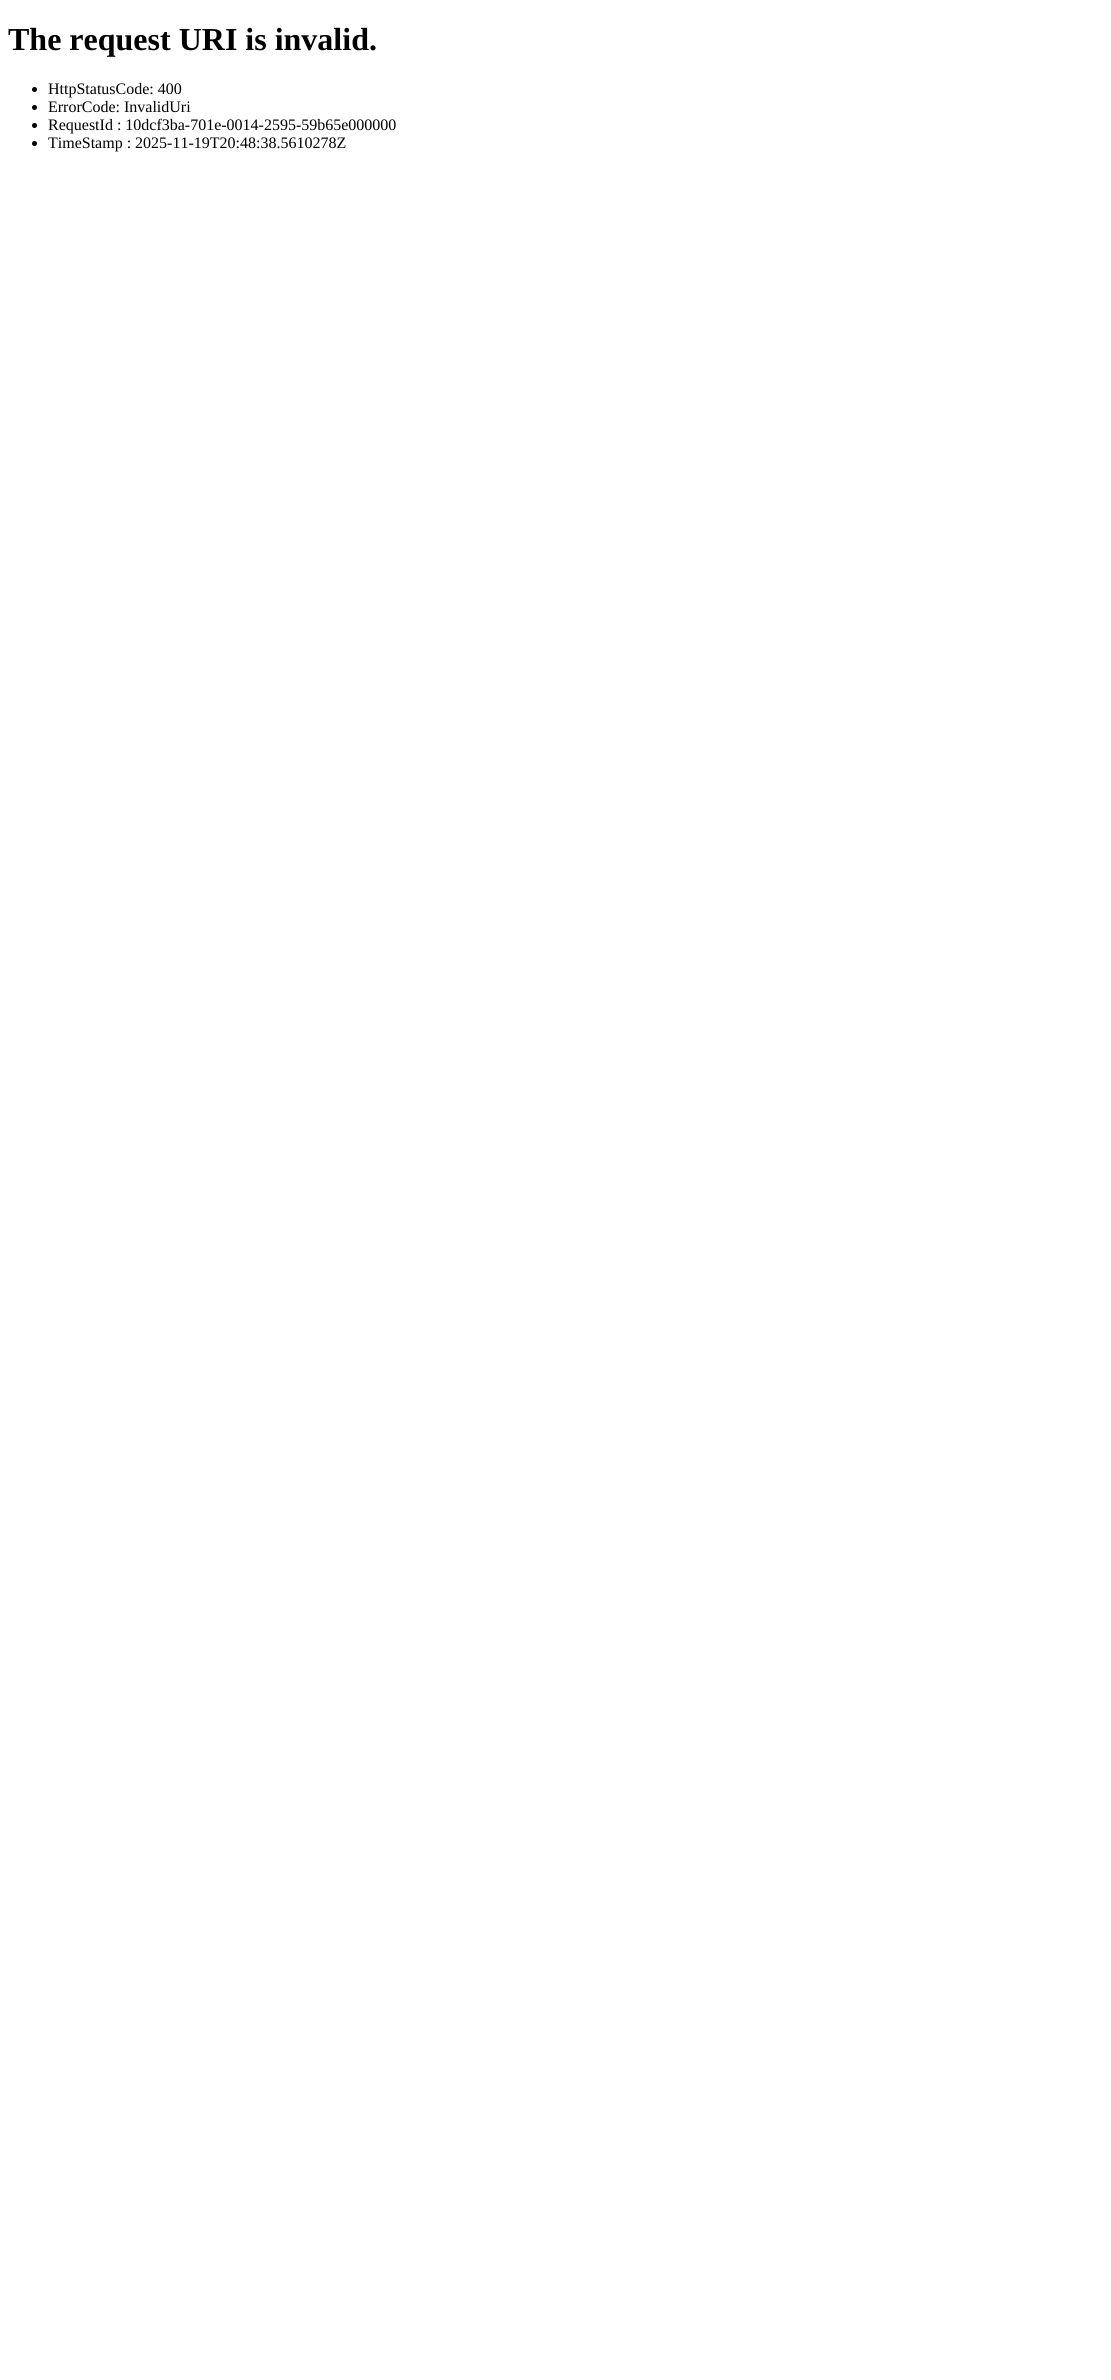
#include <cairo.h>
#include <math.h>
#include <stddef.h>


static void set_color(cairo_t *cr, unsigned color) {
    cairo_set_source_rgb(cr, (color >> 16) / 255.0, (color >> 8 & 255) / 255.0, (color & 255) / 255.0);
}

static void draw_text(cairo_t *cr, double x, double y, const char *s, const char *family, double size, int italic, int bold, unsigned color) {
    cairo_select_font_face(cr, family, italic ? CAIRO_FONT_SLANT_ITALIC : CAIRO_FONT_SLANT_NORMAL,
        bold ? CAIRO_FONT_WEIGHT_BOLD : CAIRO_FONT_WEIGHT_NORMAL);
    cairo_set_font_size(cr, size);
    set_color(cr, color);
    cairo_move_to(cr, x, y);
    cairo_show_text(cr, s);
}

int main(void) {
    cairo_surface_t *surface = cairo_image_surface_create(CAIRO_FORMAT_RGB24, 1111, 2380);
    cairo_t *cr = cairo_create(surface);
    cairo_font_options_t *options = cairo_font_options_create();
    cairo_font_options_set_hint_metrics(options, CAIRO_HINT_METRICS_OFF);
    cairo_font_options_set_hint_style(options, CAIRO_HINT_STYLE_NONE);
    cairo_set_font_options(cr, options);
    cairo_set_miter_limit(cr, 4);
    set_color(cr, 0xFFFFFF);
    cairo_paint(cr);
    draw_text(cr, 8, 50, "The request URI is invalid.", "Liberation Serif", 32, 0, 1, 0x000000);
    cairo_new_path(cr);
    cairo_arc(cr, 34.5, 89.5, 2.5, 0, 2 * M_PI);
    cairo_fill(cr);
    draw_text(cr, 48, 94, "HttpStatusCode: 400", "Liberation Serif", 16, 0, 0, 0x000000);
    cairo_new_path(cr);
    cairo_arc(cr, 34.5, 107.5, 2.5, 0, 2 * M_PI);
    cairo_fill(cr);
    draw_text(cr, 48, 112, "ErrorCode: InvalidUri", "Liberation Serif", 16, 0, 0, 0x000000);
    cairo_new_path(cr);
    cairo_arc(cr, 34.5, 125.5, 2.5, 0, 2 * M_PI);
    cairo_fill(cr);
    draw_text(cr, 48, 130, "RequestId : 10dcf3ba-701e-0014-2595-59b65e000000", "Liberation Serif", 16, 0, 0, 0x000000);
    cairo_new_path(cr);
    cairo_arc(cr, 34.5, 143.5, 2.5, 0, 2 * M_PI);
    cairo_fill(cr);
    draw_text(cr, 48, 148, "TimeStamp : 2025-11-19T20:48:38.5610278Z", "Liberation Serif", 16, 0, 0, 0x000000);
    cairo_surface_write_to_png(surface, "output.png");
    cairo_font_options_destroy(options);
    cairo_destroy(cr);
    cairo_surface_destroy(surface);
    return 0;
}
